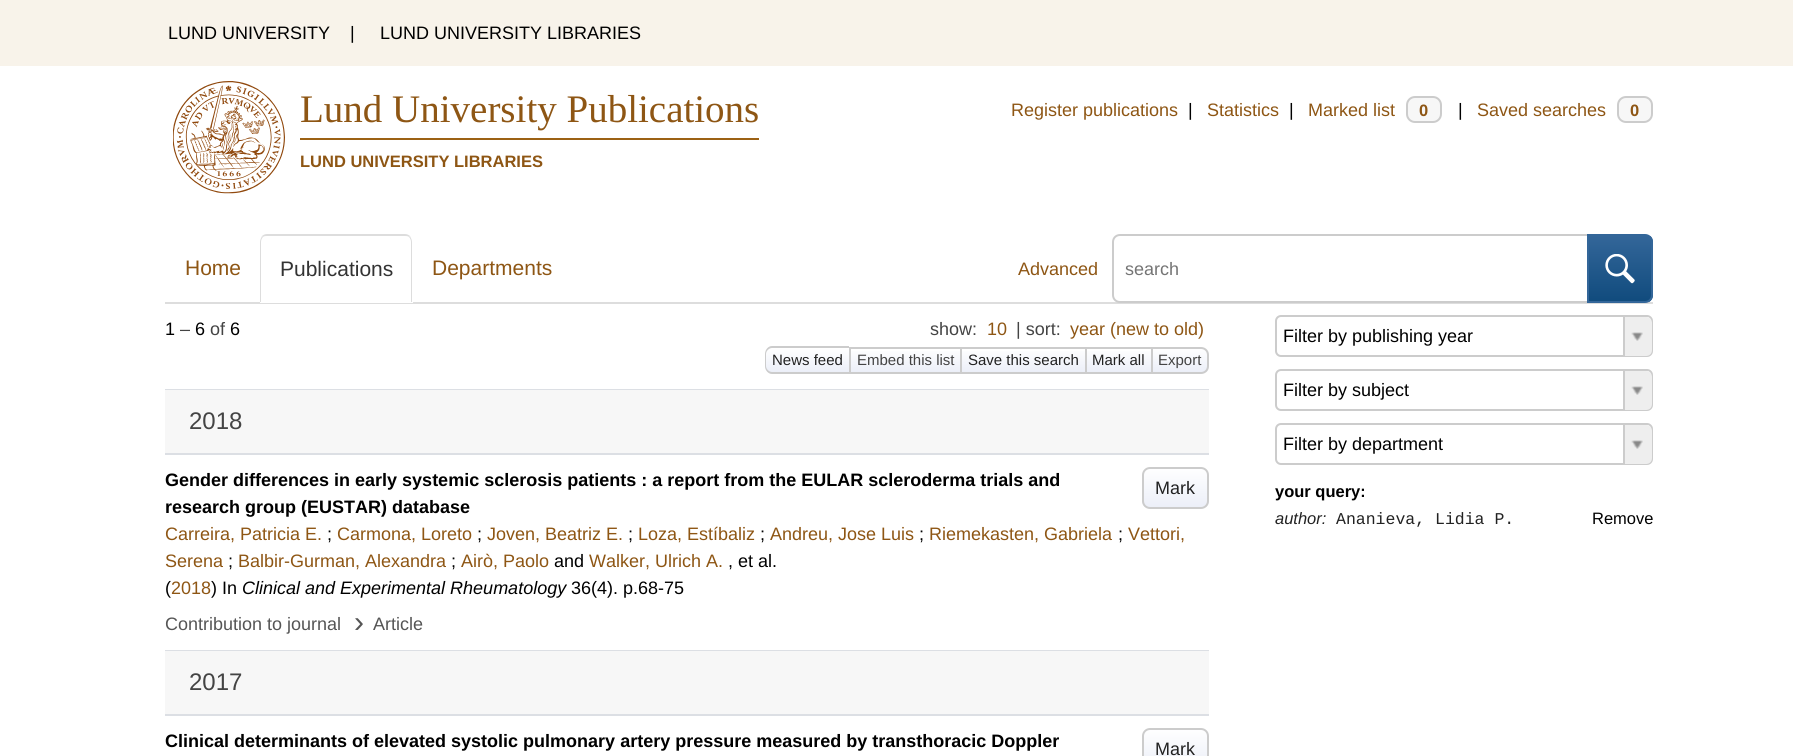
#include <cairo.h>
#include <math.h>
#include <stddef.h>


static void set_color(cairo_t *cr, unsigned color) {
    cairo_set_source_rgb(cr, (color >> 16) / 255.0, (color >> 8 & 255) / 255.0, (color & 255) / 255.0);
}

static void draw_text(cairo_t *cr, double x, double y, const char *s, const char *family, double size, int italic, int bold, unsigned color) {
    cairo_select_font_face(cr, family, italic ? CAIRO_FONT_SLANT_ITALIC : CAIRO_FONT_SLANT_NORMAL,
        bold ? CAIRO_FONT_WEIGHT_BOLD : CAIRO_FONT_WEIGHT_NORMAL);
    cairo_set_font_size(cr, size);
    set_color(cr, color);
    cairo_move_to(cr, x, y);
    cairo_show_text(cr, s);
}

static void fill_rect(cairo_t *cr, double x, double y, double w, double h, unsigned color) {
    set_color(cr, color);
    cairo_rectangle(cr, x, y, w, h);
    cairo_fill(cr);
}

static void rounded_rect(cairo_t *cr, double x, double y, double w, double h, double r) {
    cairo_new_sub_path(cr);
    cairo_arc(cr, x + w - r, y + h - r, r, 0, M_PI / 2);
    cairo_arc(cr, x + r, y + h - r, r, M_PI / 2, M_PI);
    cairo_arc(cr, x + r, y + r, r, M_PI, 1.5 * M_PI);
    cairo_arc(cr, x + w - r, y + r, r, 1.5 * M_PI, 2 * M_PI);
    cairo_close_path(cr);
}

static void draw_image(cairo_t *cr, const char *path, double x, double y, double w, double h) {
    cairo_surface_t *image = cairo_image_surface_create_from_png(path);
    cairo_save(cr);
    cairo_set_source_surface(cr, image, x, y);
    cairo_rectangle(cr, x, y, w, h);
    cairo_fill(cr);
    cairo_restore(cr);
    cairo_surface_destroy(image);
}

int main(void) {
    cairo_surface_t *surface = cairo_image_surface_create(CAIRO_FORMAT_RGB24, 1793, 756);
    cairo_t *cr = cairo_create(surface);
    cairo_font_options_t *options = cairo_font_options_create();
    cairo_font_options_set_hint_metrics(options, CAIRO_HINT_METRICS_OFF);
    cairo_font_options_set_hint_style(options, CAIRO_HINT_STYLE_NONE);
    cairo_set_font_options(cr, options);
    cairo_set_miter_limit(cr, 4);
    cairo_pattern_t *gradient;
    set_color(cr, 0xFFFFFF);
    cairo_paint(cr);
    fill_rect(cr, 0, 0, 1793, 66, 0xF8F3EA);
    draw_text(cr, 168, 39, "LUND UNIVERSITY", "Liberation Sans", 18, 0, 0, 0x000000);
    draw_text(cr, 350, 39, "|", "Liberation Sans", 18, 0, 0, 0x000000);
    draw_text(cr, 380, 39, "LUND UNIVERSITY LIBRARIES", "Liberation Sans", 18, 0, 0, 0x000000);
    draw_image(cr, "assets/img1.png", 173, 81, 112, 113);
    draw_text(cr, 300, 122, "Lund University Publications", "Liberation Serif", 39, 0, 0, 0x8E5614);
    fill_rect(cr, 300, 138, 459, 2, 0x9C6114);
    draw_text(cr, 300, 167, "LUND UNIVERSITY LIBRARIES", "Liberation Sans", 16.5, 0, 1, 0x8E5614);
    draw_text(cr, 1011, 116, "Register publications", "Liberation Sans", 18, 0, 0, 0x8E5614);
    draw_text(cr, 1188, 116, "|", "Liberation Sans", 18, 0, 0, 0x000000);
    draw_text(cr, 1207, 116, "Statistics", "Liberation Sans", 18, 0, 0, 0x8E5614);
    draw_text(cr, 1289, 116, "|", "Liberation Sans", 18, 0, 0, 0x000000);
    draw_text(cr, 1308, 116, "Marked list", "Liberation Sans", 18, 0, 0, 0x8E5614);
    set_color(cr, 0xF7F7F7);
    rounded_rect(cr, 1407, 97, 34, 25, 8);
    cairo_fill_preserve(cr);
    set_color(cr, 0xCCCCCC);
    cairo_stroke(cr);
    draw_text(cr, 1419, 116, "0", "Liberation Sans", 16.5, 0, 1, 0x8E5614);
    draw_text(cr, 1458, 116, "|", "Liberation Sans", 18, 0, 0, 0x000000);
    draw_text(cr, 1477, 116, "Saved searches", "Liberation Sans", 18, 0, 0, 0x8E5614);
    set_color(cr, 0xF7F7F7);
    rounded_rect(cr, 1618, 97, 34, 25, 8);
    cairo_fill_preserve(cr);
    set_color(cr, 0xCCCCCC);
    cairo_stroke(cr);
    draw_text(cr, 1630, 116, "0", "Liberation Sans", 16.5, 0, 1, 0x8E5614);
    fill_rect(cr, 165, 302, 1488, 2, 0xDDDDDD);
    draw_text(cr, 185, 275, "Home", "Liberation Sans", 21, 0, 0, 0x8E5614);
    set_color(cr, 0xFFFFFF);
    cairo_new_path(cr);
    cairo_move_to(cr, 268, 234);
    cairo_line_to(cr, 405, 234);
    cairo_curve_to(cr, 409.5, 234, 413, 237.5, 413, 242);
    cairo_line_to(cr, 413, 303);
    cairo_line_to(cr, 260, 303);
    cairo_line_to(cr, 260, 242);
    cairo_curve_to(cr, 260, 237.5, 263.5, 234, 268, 234);
    cairo_close_path(cr);
    cairo_fill(cr);
    set_color(cr, 0xDDDDDD);
    cairo_new_path(cr);
    cairo_move_to(cr, 267, 234);
    cairo_curve_to(cr, 265, 234, 263, 235, 262, 236);
    cairo_line_to(cr, 263, 237);
    cairo_curve_to(cr, 264, 236, 266, 236, 267, 236);
    cairo_line_to(cr, 405, 236);
    cairo_curve_to(cr, 406, 236, 408, 236, 409, 237);
    cairo_line_to(cr, 410, 236);
    cairo_curve_to(cr, 409, 235, 407, 234, 405, 234);
    cairo_close_path(cr);
    cairo_fill(cr);
    cairo_new_path(cr);
    cairo_move_to(cr, 410, 236);
    cairo_curve_to(cr, 411, 238, 412, 240, 412, 242);
    cairo_line_to(cr, 412, 302);
    cairo_line_to(cr, 411, 302);
    cairo_line_to(cr, 411, 242);
    cairo_curve_to(cr, 411, 240, 410, 238, 409, 237);
    cairo_close_path(cr);
    cairo_fill(cr);
    cairo_new_path(cr);
    cairo_move_to(cr, 262, 236);
    cairo_curve_to(cr, 261, 238, 260, 240, 260, 242);
    cairo_line_to(cr, 260, 302);
    cairo_line_to(cr, 261, 302);
    cairo_line_to(cr, 261, 242);
    cairo_curve_to(cr, 261, 240, 262, 238, 263, 237);
    cairo_close_path(cr);
    cairo_fill(cr);
    draw_text(cr, 280, 276, "Publications", "Liberation Sans", 21, 0, 0, 0x333333);
    draw_text(cr, 432, 275, "Departments", "Liberation Sans", 21, 0, 0, 0x8E5614);
    draw_text(cr, 1018, 275, "Advanced", "Liberation Sans", 18, 0, 0, 0x8E5614);
    set_color(cr, 0xFFFFFF);
    cairo_new_path(cr);
    cairo_move_to(cr, 1120, 235);
    cairo_line_to(cr, 1588, 235);
    cairo_line_to(cr, 1588, 302);
    cairo_line_to(cr, 1120, 302);
    cairo_curve_to(cr, 1116, 302, 1113, 299, 1113, 295);
    cairo_line_to(cr, 1113, 242);
    cairo_curve_to(cr, 1113, 238, 1116, 235, 1120, 235);
    cairo_close_path(cr);
    cairo_fill_preserve(cr);
    set_color(cr, 0xCCCCCC);
    cairo_stroke(cr);
    draw_text(cr, 1125, 275, "search", "Liberation Sans", 18, 0, 0, 0x757575);
    cairo_save(cr);
    cairo_new_path(cr);
    cairo_move_to(cr, 1587, 234);
    cairo_line_to(cr, 1645, 234);
    cairo_curve_to(cr, 1649.5, 234, 1653, 237.5, 1653, 242);
    cairo_line_to(cr, 1653, 295);
    cairo_curve_to(cr, 1653, 299.5, 1649.5, 303, 1645, 303);
    cairo_line_to(cr, 1587, 303);
    cairo_close_path(cr);
    cairo_clip(cr);
    gradient = cairo_pattern_create_linear(1620, 236, 1620, 302);
    cairo_pattern_add_color_stop_rgba(gradient, 0, 0.2, 0.4, 0.6, 1);
    cairo_pattern_add_color_stop_rgba(gradient, 1, 0.063, 0.294, 0.49, 1);
    cairo_set_source(cr, gradient);
    cairo_pattern_destroy(gradient);
    cairo_rectangle(cr, 1589, 236, 64, 66);
    cairo_fill(cr);
    cairo_restore(cr);
    cairo_new_path(cr);
    cairo_move_to(cr, 1588, 235);
    cairo_line_to(cr, 1645, 235);
    cairo_curve_to(cr, 1649, 235, 1652, 238, 1652, 242);
    cairo_line_to(cr, 1652, 295);
    cairo_curve_to(cr, 1652, 299, 1649, 302, 1645, 302);
    cairo_line_to(cr, 1588, 302);
    cairo_close_path(cr);
    set_color(cr, 0x336699);
    cairo_stroke(cr);
    draw_image(cr, "assets/img2.png", 1605, 254, 30, 30);
    draw_text(cr, 165, 335, "1", "Liberation Sans", 18, 0, 0, 0x000000);
    draw_text(cr, 180, 335, "–", "Liberation Sans", 18, 0, 0, 0x444444);
    draw_text(cr, 195, 335, "6", "Liberation Sans", 18, 0, 0, 0x000000);
    draw_text(cr, 210, 335, "of", "Liberation Sans", 18, 0, 0, 0x444444);
    draw_text(cr, 230, 335, "6", "Liberation Sans", 18, 0, 0, 0x000000);
    draw_text(cr, 930, 335, "show:", "Liberation Sans", 18, 0, 0, 0x444444);
    draw_text(cr, 987, 335, "10", "Liberation Sans", 18, 0, 0, 0x8E5614);
    draw_text(cr, 1016, 335, "| sort:", "Liberation Sans", 18, 0, 0, 0x444444);
    draw_text(cr, 1070, 335, "year (new to old)", "Liberation Sans", 18, 0, 0, 0x8E5614);
    cairo_save(cr);
    cairo_new_path(cr);
    cairo_move_to(cr, 773, 347);
    cairo_line_to(cr, 849, 347);
    cairo_line_to(cr, 849, 374);
    cairo_line_to(cr, 773, 374);
    cairo_curve_to(cr, 768.5, 374, 765, 370.5, 765, 366);
    cairo_line_to(cr, 765, 355);
    cairo_curve_to(cr, 765, 350.5, 768.5, 347, 773, 347);
    cairo_close_path(cr);
    cairo_clip(cr);
    gradient = cairo_pattern_create_linear(808, 348, 808, 372);
    cairo_pattern_add_color_stop_rgba(gradient, 0, 1, 1, 1, 1);
    cairo_pattern_add_color_stop_rgba(gradient, 1, 0.925, 0.937, 0.973, 1);
    cairo_set_source(cr, gradient);
    cairo_pattern_destroy(gradient);
    cairo_rectangle(cr, 765, 348, 84, 24);
    cairo_fill(cr);
    cairo_restore(cr);
    set_color(cr, 0xCCCCCC);
    cairo_set_fill_rule(cr, CAIRO_FILL_RULE_EVEN_ODD);
    cairo_new_path(cr);
    cairo_move_to(cr, 772, 346);
    cairo_line_to(cr, 849, 346);
    cairo_line_to(cr, 849, 374);
    cairo_line_to(cr, 772, 374);
    cairo_curve_to(cr, 768, 374, 765, 370, 765, 366);
    cairo_line_to(cr, 765, 354);
    cairo_curve_to(cr, 765, 350, 768, 346, 772, 346);
    cairo_close_path(cr);
    cairo_move_to(cr, 772, 348);
    cairo_line_to(cr, 849, 348);
    cairo_line_to(cr, 849, 372);
    cairo_line_to(cr, 772, 372);
    cairo_curve_to(cr, 769, 372, 766, 369, 766, 366);
    cairo_line_to(cr, 766, 354);
    cairo_curve_to(cr, 766, 351, 769, 348, 772, 348);
    cairo_close_path(cr);
    cairo_fill(cr);
    draw_text(cr, 772, 365, "News feed", "Liberation Sans", 15, 0, 0, 0x222222);
    gradient = cairo_pattern_create_linear(905, 348, 905, 372);
    cairo_pattern_add_color_stop_rgba(gradient, 0, 1, 1, 1, 1);
    cairo_pattern_add_color_stop_rgba(gradient, 1, 0.925, 0.937, 0.973, 1);
    cairo_set_source(cr, gradient);
    cairo_pattern_destroy(gradient);
    cairo_rectangle(cr, 851, 351, 109, 21);
    cairo_fill(cr);
    fill_rect(cr, 849, 347, 302, 2, 0xCCCCCC);
    fill_rect(cr, 849, 372, 302, 2, 0xCCCCCC);
    fill_rect(cr, 849, 347, 2, 27, 0xCCCCCC);
    draw_text(cr, 857, 365, "Embed this list", "Liberation Sans", 15, 0, 0, 0x444444);
    gradient = cairo_pattern_create_linear(1023, 348, 1023, 372);
    cairo_pattern_add_color_stop_rgba(gradient, 0, 1, 1, 1, 1);
    cairo_pattern_add_color_stop_rgba(gradient, 1, 0.925, 0.937, 0.973, 1);
    cairo_set_source(cr, gradient);
    cairo_pattern_destroy(gradient);
    cairo_rectangle(cr, 962, 351, 123, 21);
    cairo_fill(cr);
    fill_rect(cr, 960, 347, 2, 27, 0xCCCCCC);
    draw_text(cr, 968, 365, "Save this search", "Liberation Sans", 15, 0, 0, 0x222222);
    gradient = cairo_pattern_create_linear(1118, 348, 1118, 372);
    cairo_pattern_add_color_stop_rgba(gradient, 0, 1, 1, 1, 1);
    cairo_pattern_add_color_stop_rgba(gradient, 1, 0.925, 0.937, 0.973, 1);
    cairo_set_source(cr, gradient);
    cairo_pattern_destroy(gradient);
    cairo_rectangle(cr, 1087, 351, 64, 21);
    cairo_fill(cr);
    fill_rect(cr, 1085, 347, 2, 27, 0xCCCCCC);
    draw_text(cr, 1092, 365, "Mark all", "Liberation Sans", 15, 0, 0, 0x222222);
    cairo_save(cr);
    cairo_set_fill_rule(cr, CAIRO_FILL_RULE_WINDING);
    cairo_new_path(cr);
    cairo_move_to(cr, 1151, 347);
    cairo_line_to(cr, 1201, 347);
    cairo_curve_to(cr, 1205.5, 347, 1209, 350.5, 1209, 355);
    cairo_line_to(cr, 1209, 366);
    cairo_curve_to(cr, 1209, 370.5, 1205.5, 374, 1201, 374);
    cairo_line_to(cr, 1151, 374);
    cairo_close_path(cr);
    cairo_clip(cr);
    gradient = cairo_pattern_create_linear(1180, 348, 1180, 372);
    cairo_pattern_add_color_stop_rgba(gradient, 0, 1, 1, 1, 1);
    cairo_pattern_add_color_stop_rgba(gradient, 1, 0.925, 0.937, 0.973, 1);
    cairo_set_source(cr, gradient);
    cairo_pattern_destroy(gradient);
    cairo_rectangle(cr, 1153, 348, 56, 24);
    cairo_fill(cr);
    cairo_restore(cr);
    cairo_new_path(cr);
    cairo_move_to(cr, 1152, 348);
    cairo_line_to(cr, 1201, 348);
    cairo_curve_to(cr, 1205, 348, 1208, 351, 1208, 355);
    cairo_line_to(cr, 1208, 366);
    cairo_curve_to(cr, 1208, 370, 1205, 373, 1201, 373);
    cairo_line_to(cr, 1152, 373);
    cairo_close_path(cr);
    set_color(cr, 0xCCCCCC);
    cairo_stroke(cr);
    draw_text(cr, 1158, 365, "Export", "Liberation Sans", 15, 0, 0, 0x444444);
    fill_rect(cr, 165, 389, 1044, 1, 0xDCDFE4);
    fill_rect(cr, 165, 390, 1044, 63, 0xF7F7F7);
    fill_rect(cr, 165, 453, 1044, 2, 0xDCDFE4);
    draw_text(cr, 189, 429, "2018", "Liberation Sans", 24, 0, 0, 0x444444);
    fill_rect(cr, 165, 650, 1044, 1, 0xDCDFE4);
    draw_text(cr, 165, 486, "Gender differences in early systemic sclerosis patients : a report from the EULAR scleroderma trials and", "Liberation Sans", 18, 0, 1, 0x000000);
    draw_text(cr, 165, 513, "research group (EUSTAR) database", "Liberation Sans", 18, 0, 1, 0x000000);
    cairo_save(cr);
    cairo_set_fill_rule(cr, CAIRO_FILL_RULE_WINDING);
    rounded_rect(cr, 1142, 467, 67, 42, 8);
    cairo_clip(cr);
    gradient = cairo_pattern_create_linear(1175, 468, 1175, 507);
    cairo_pattern_add_color_stop_rgba(gradient, 0, 1, 1, 1, 1);
    cairo_pattern_add_color_stop_rgba(gradient, 1, 0.925, 0.937, 0.973, 1);
    cairo_set_source(cr, gradient);
    cairo_pattern_destroy(gradient);
    cairo_rectangle(cr, 1142, 468, 67, 39);
    cairo_fill(cr);
    cairo_restore(cr);
    rounded_rect(cr, 1143, 468, 65, 40, 7);
    set_color(cr, 0xCCCCCC);
    cairo_stroke(cr);
    draw_text(cr, 1155, 494, "Mark", "Liberation Sans", 18, 0, 0, 0x222222);
    draw_text(cr, 165, 540, "Carreira, Patricia E.", "Liberation Sans", 18, 0, 0, 0x8E5614);
    draw_text(cr, 327, 540, ";", "Liberation Sans", 18, 0, 0, 0x000000);
    draw_text(cr, 337, 540, "Carmona, Loreto", "Liberation Sans", 18, 0, 0, 0x8E5614);
    draw_text(cr, 477, 540, ";", "Liberation Sans", 18, 0, 0, 0x000000);
    draw_text(cr, 487, 540, "Joven, Beatriz E.", "Liberation Sans", 18, 0, 0, 0x8E5614);
    draw_text(cr, 628, 540, ";", "Liberation Sans", 18, 0, 0, 0x000000);
    draw_text(cr, 638, 540, "Loza, Estíbaliz", "Liberation Sans", 18, 0, 0, 0x8E5614);
    draw_text(cr, 760, 540, ";", "Liberation Sans", 18, 0, 0, 0x000000);
    draw_text(cr, 770, 540, "Andreu, Jose Luis", "Liberation Sans", 18, 0, 0, 0x8E5614);
    draw_text(cr, 919, 540, ";", "Liberation Sans", 18, 0, 0, 0x000000);
    draw_text(cr, 929, 540, "Riemekasten, Gabriela", "Liberation Sans", 18, 0, 0, 0x8E5614);
    draw_text(cr, 1118, 540, ";", "Liberation Sans", 18, 0, 0, 0x000000);
    draw_text(cr, 1128, 540, "Vettori,", "Liberation Sans", 18, 0, 0, 0x8E5614);
    draw_text(cr, 165, 567, "Serena", "Liberation Sans", 18, 0, 0, 0x8E5614);
    draw_text(cr, 228, 567, ";", "Liberation Sans", 18, 0, 0, 0x000000);
    draw_text(cr, 238, 567, "Balbir-Gurman, Alexandra", "Liberation Sans", 18, 0, 0, 0x8E5614);
    draw_text(cr, 451, 567, ";", "Liberation Sans", 18, 0, 0, 0x000000);
    draw_text(cr, 461, 567, "Airò, Paolo", "Liberation Sans", 18, 0, 0, 0x8E5614);
    draw_text(cr, 554, 567, "and", "Liberation Sans", 18, 0, 0, 0x000000);
    draw_text(cr, 589, 567, "Walker, Ulrich A.", "Liberation Sans", 18, 0, 0, 0x8E5614);
    draw_text(cr, 728, 567, ", et al.", "Liberation Sans", 18, 0, 0, 0x000000);
    draw_text(cr, 165, 594, "(", "Liberation Sans", 18, 0, 0, 0x000000);
    draw_text(cr, 171, 594, "2018", "Liberation Sans", 18, 0, 0, 0x8E5614);
    draw_text(cr, 211, 594, ") In", "Liberation Sans", 18, 0, 0, 0x000000);
    draw_text(cr, 242, 594, "Clinical and Experimental Rheumatology", "Liberation Sans", 18, 1, 0, 0x000000);
    draw_text(cr, 571, 594, "36(4). p.68-75", "Liberation Sans", 18, 0, 0, 0x000000);
    draw_text(cr, 165, 630, "Contribution to journal", "Liberation Sans", 18, 0, 0, 0x555555);
    draw_text(cr, 354, 632, "›", "Liberation Sans", 30, 0, 0, 0x555555);
    draw_text(cr, 373, 630, "Article", "Liberation Sans", 18, 0, 0, 0x555555);
    fill_rect(cr, 165, 651, 1044, 63, 0xF7F7F7);
    fill_rect(cr, 165, 714, 1044, 2, 0xDCDFE4);
    draw_text(cr, 189, 690, "2017", "Liberation Sans", 24, 0, 0, 0x444444);
    draw_text(cr, 165, 747, "Clinical determinants of elevated systolic pulmonary artery pressure measured by transthoracic Doppler", "Liberation Sans", 18, 0, 1, 0x000000);
    cairo_save(cr);
    cairo_set_fill_rule(cr, CAIRO_FILL_RULE_WINDING);
    rounded_rect(cr, 1142, 728, 67, 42, 8);
    cairo_clip(cr);
    gradient = cairo_pattern_create_linear(1175, 729, 1175, 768);
    cairo_pattern_add_color_stop_rgba(gradient, 0, 1, 1, 1, 1);
    cairo_pattern_add_color_stop_rgba(gradient, 1, 0.925, 0.937, 0.973, 1);
    cairo_set_source(cr, gradient);
    cairo_pattern_destroy(gradient);
    cairo_rectangle(cr, 1142, 729, 67, 27);
    cairo_fill(cr);
    cairo_restore(cr);
    rounded_rect(cr, 1143, 729, 65, 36, 7);
    set_color(cr, 0xCCCCCC);
    cairo_stroke(cr);
    draw_text(cr, 1155, 755, "Mark", "Liberation Sans", 18, 0, 0, 0x222222);
    rounded_rect(cr, 1276, 316, 376, 40, 5);
    set_color(cr, 0xCCCCCC);
    cairo_stroke(cr);
    draw_text(cr, 1283, 342, "Filter by publishing year", "Liberation Sans", 18, 0, 0, 0x000000);
    cairo_save(cr);
    cairo_set_fill_rule(cr, CAIRO_FILL_RULE_WINDING);
    rounded_rect(cr, 1277, 317, 375, 39, 5);
    cairo_clip(cr);
    set_color(cr, 0xEEEEEE);
    cairo_new_path(cr);
    cairo_move_to(cr, 1623, 317);
    cairo_line_to(cr, 1646, 317);
    cairo_curve_to(cr, 1649.5, 317, 1652, 319.5, 1652, 323);
    cairo_line_to(cr, 1652, 350);
    cairo_curve_to(cr, 1652, 353.5, 1649.5, 356, 1646, 356);
    cairo_line_to(cr, 1623, 356);
    cairo_close_path(cr);
    cairo_fill(cr);
    cairo_restore(cr);
    fill_rect(cr, 1623, 317, 2, 39, 0xCCCCCC);
    draw_image(cr, "assets/img3.png", 1631, 332, 12, 9);
    rounded_rect(cr, 1276, 370, 376, 40, 5);
    cairo_stroke(cr);
    draw_text(cr, 1283, 396, "Filter by subject", "Liberation Sans", 18, 0, 0, 0x000000);
    cairo_save(cr);
    cairo_set_fill_rule(cr, CAIRO_FILL_RULE_WINDING);
    rounded_rect(cr, 1277, 371, 375, 39, 5);
    cairo_clip(cr);
    set_color(cr, 0xEEEEEE);
    cairo_new_path(cr);
    cairo_move_to(cr, 1623, 371);
    cairo_line_to(cr, 1646, 371);
    cairo_curve_to(cr, 1649.5, 371, 1652, 373.5, 1652, 377);
    cairo_line_to(cr, 1652, 404);
    cairo_curve_to(cr, 1652, 407.5, 1649.5, 410, 1646, 410);
    cairo_line_to(cr, 1623, 410);
    cairo_close_path(cr);
    cairo_fill(cr);
    cairo_restore(cr);
    fill_rect(cr, 1623, 371, 2, 39, 0xCCCCCC);
    draw_image(cr, "assets/img3.png", 1631, 386, 12, 9);
    rounded_rect(cr, 1276, 424, 376, 40, 5);
    cairo_stroke(cr);
    draw_text(cr, 1283, 450, "Filter by department", "Liberation Sans", 18, 0, 0, 0x000000);
    cairo_save(cr);
    cairo_set_fill_rule(cr, CAIRO_FILL_RULE_WINDING);
    rounded_rect(cr, 1277, 425, 375, 39, 5);
    cairo_clip(cr);
    set_color(cr, 0xEEEEEE);
    cairo_new_path(cr);
    cairo_move_to(cr, 1623, 425);
    cairo_line_to(cr, 1646, 425);
    cairo_curve_to(cr, 1649.5, 425, 1652, 427.5, 1652, 431);
    cairo_line_to(cr, 1652, 458);
    cairo_curve_to(cr, 1652, 461.5, 1649.5, 464, 1646, 464);
    cairo_line_to(cr, 1623, 464);
    cairo_close_path(cr);
    cairo_fill(cr);
    cairo_restore(cr);
    fill_rect(cr, 1623, 425, 2, 39, 0xCCCCCC);
    draw_image(cr, "assets/img3.png", 1631, 440, 12, 9);
    draw_text(cr, 1275, 497, "your query:", "Liberation Sans", 16.5, 0, 1, 0x000000);
    draw_text(cr, 1275, 524, "author:", "Liberation Sans", 16.5, 1, 0, 0x222222);
    draw_text(cr, 1336, 524, "Ananieva, Lidia P.", "Liberation Mono", 16.5, 0, 0, 0x222222);
    draw_text(cr, 1592, 524, "Remove", "Liberation Sans", 16.5, 0, 0, 0x000000);
    cairo_surface_write_to_png(surface, "output.png");
    cairo_font_options_destroy(options);
    cairo_destroy(cr);
    cairo_surface_destroy(surface);
    return 0;
}
